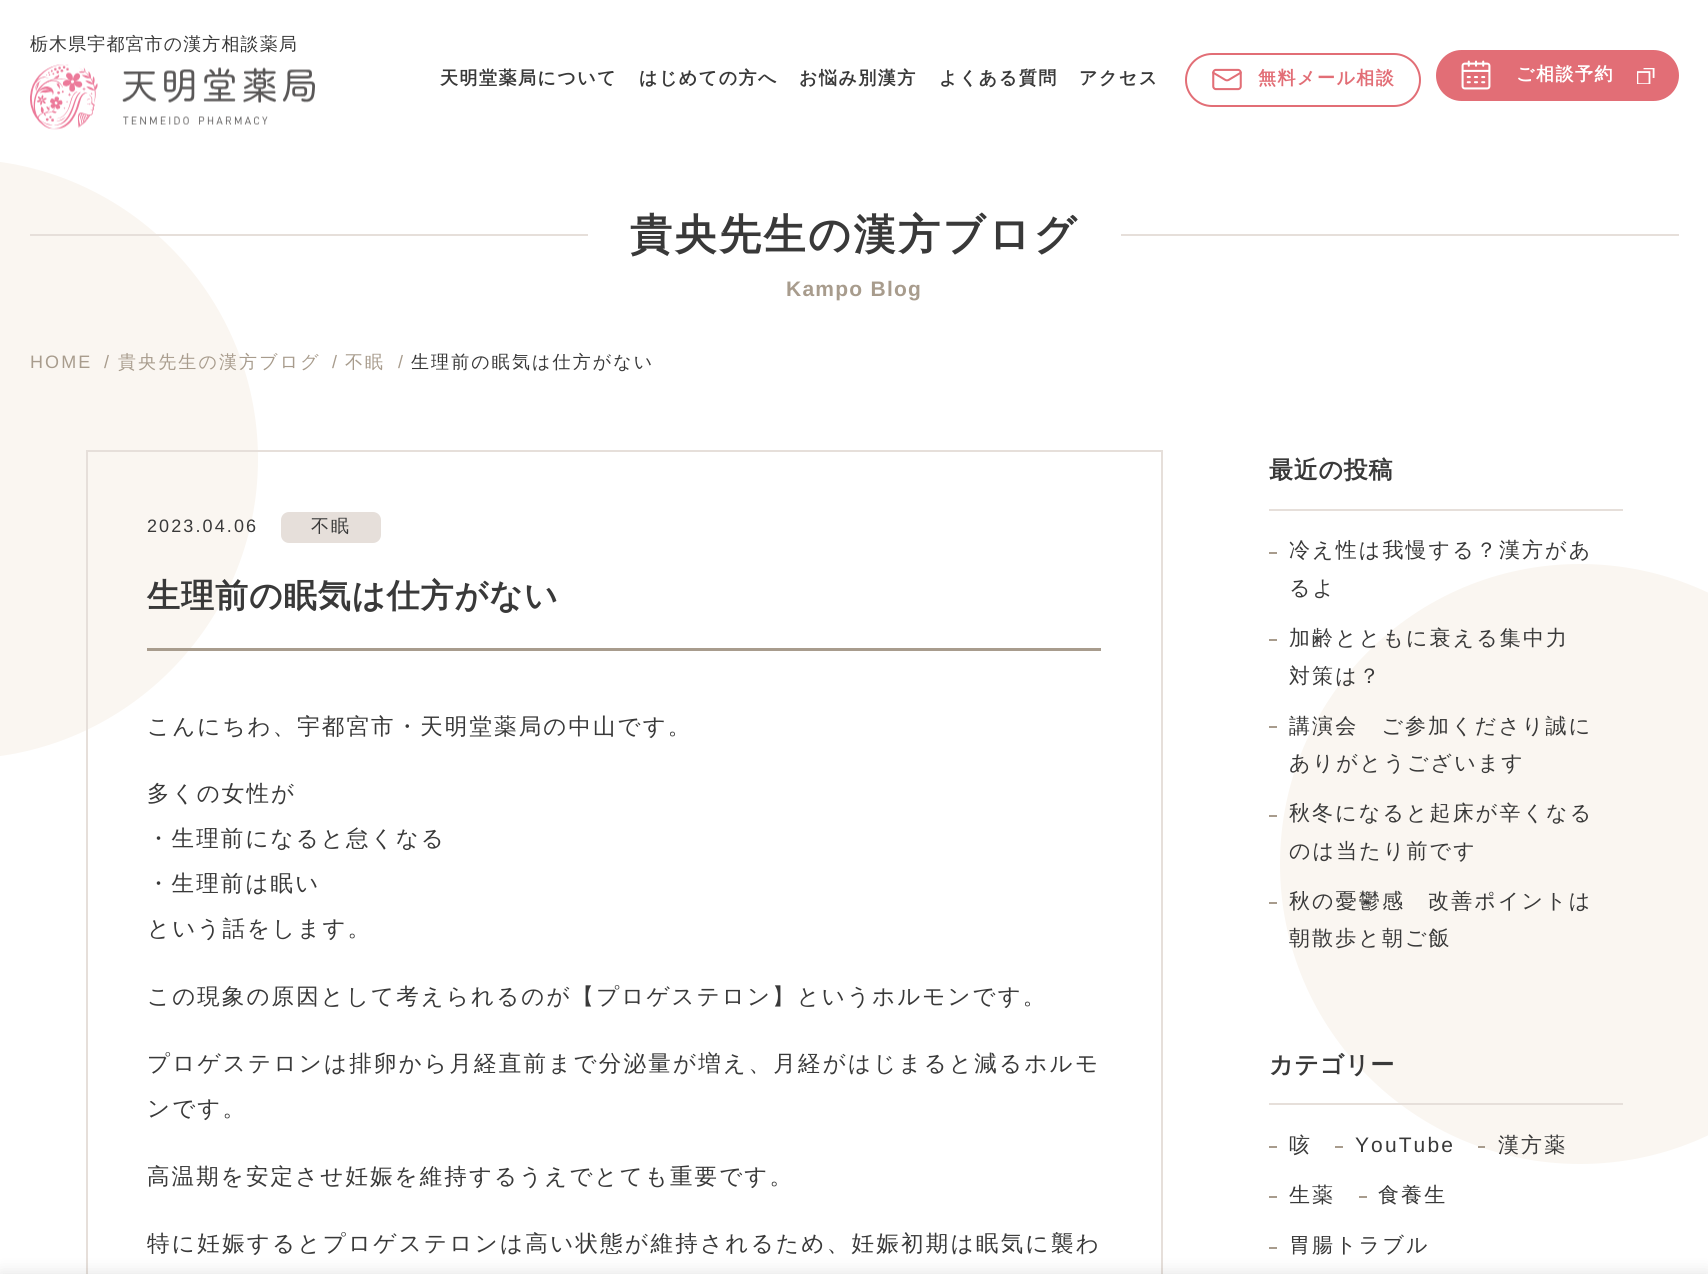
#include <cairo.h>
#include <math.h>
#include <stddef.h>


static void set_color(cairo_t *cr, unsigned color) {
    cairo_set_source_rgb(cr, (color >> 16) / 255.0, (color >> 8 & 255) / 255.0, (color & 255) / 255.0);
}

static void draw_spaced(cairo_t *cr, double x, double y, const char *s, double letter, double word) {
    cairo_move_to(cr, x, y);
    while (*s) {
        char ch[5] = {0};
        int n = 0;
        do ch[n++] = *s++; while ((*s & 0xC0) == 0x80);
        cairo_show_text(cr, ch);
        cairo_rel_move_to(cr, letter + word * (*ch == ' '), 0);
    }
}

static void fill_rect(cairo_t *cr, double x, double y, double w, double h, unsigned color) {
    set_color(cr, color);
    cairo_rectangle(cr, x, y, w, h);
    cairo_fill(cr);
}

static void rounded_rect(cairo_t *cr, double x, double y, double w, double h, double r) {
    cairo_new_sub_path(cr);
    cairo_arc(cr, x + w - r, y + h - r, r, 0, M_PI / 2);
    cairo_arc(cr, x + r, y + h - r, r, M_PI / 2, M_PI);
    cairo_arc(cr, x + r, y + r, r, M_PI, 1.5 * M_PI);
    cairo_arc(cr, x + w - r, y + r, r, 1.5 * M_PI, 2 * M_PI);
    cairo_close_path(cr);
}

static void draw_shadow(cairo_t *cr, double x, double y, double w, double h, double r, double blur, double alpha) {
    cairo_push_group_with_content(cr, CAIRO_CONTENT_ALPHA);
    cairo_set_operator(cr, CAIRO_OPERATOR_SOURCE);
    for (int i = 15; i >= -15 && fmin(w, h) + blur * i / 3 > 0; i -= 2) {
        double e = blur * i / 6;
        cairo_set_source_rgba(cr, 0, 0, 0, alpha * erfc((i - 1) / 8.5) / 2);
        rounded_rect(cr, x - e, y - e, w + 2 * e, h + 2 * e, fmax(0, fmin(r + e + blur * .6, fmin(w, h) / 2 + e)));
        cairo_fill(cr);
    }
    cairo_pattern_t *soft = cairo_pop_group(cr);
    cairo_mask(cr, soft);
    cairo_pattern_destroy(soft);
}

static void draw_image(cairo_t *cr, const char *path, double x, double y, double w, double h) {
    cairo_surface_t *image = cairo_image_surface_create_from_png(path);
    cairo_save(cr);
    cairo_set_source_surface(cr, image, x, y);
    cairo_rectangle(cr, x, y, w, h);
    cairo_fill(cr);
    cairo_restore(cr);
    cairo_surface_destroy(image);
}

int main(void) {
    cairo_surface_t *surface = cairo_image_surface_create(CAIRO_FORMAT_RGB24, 1708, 1274);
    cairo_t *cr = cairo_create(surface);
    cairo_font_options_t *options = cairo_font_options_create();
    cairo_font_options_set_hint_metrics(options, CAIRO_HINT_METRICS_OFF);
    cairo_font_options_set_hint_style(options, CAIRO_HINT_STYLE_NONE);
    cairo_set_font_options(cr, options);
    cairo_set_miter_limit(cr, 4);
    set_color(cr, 0xFFFFFF);
    cairo_paint(cr);
    cairo_select_font_face(cr, "WenQuanYi Zen Hei Medium", CAIRO_FONT_SLANT_NORMAL, CAIRO_FONT_WEIGHT_NORMAL);
    cairo_set_font_size(cr, 18);
    set_color(cr, 0x393939);
    draw_spaced(cr, 30, 50, "栃木県宇都宮市の漢方相談薬局", 1.1, 0);
    draw_image(cr, "assets/img1.png", 30, 64, 285, 66);
    cairo_select_font_face(cr, "WenQuanYi Zen Hei", CAIRO_FONT_SLANT_NORMAL, CAIRO_FONT_WEIGHT_BOLD);
    draw_spaced(cr, 440, 84, "天明堂薬局について", 1.5, 0);
    draw_spaced(cr, 639, 84, "はじめての方へ", 1.5, 0);
    draw_spaced(cr, 799, 84, "お悩み別漢方", 1.5, 0);
    draw_spaced(cr, 939, 84, "よくある質問", 1.5, 0);
    draw_spaced(cr, 1079, 84, "アクセス", 1.5, 0);
    rounded_rect(cr, 1186, 54, 234, 52, 26);
    set_color(cr, 0xE26E76);
    cairo_stroke(cr);
    draw_image(cr, "assets/img2.png", 1212, 68, 30, 23);
    draw_spaced(cr, 1258, 84, "無料メール相談", 1.5, 0);
    rounded_rect(cr, 1436, 50, 243, 51, 25.5);
    cairo_fill(cr);
    draw_image(cr, "assets/img3.png", 1461, 60, 30, 30);
    set_color(cr, 0xFFFFFF);
    draw_spaced(cr, 1516, 80, "ご相談予約", 1.5, 0);
    draw_image(cr, "assets/img4.png", 1637, 68, 18, 16);
    set_color(cr, 0xFAF6F1);
    cairo_new_path(cr);
    cairo_move_to(cr, 0, 159);
    cairo_line_to(cr, -42, 159);
    cairo_curve_to(cr, 123.5, 159, 258, 293.5, 258, 459);
    cairo_curve_to(cr, 258, 624.5, 123.5, 759, -42, 759);
    cairo_line_to(cr, 0, 759);
    cairo_close_path(cr);
    cairo_fill(cr);
    cairo_arc(cr, 1580, 864, 300, 0, 2 * M_PI);
    cairo_fill(cr);
    fill_rect(cr, 30, 234, 1649, 2, 0xE6DFDA);
    fill_rect(cr, 588, 234, 533, 2, 0xFFFFFF);
    cairo_set_font_size(cr, 42);
    set_color(cr, 0x393939);
    draw_spaced(cr, 630, 249, "貴央先生の漢方ブログ", 2.5, 0);
    cairo_select_font_face(cr, "Liberation Sans", CAIRO_FONT_SLANT_NORMAL, CAIRO_FONT_WEIGHT_BOLD);
    cairo_set_font_size(cr, 21);
    set_color(cr, 0xA89C8D);
    draw_spaced(cr, 786, 296, "Kampo Blog", 1.25, 0);
    cairo_select_font_face(cr, "Liberation Sans", CAIRO_FONT_SLANT_NORMAL, CAIRO_FONT_WEIGHT_NORMAL);
    cairo_set_font_size(cr, 18);
    draw_spaced(cr, 30, 368, "HOME", 2.1, 0);
    draw_spaced(cr, 104, 368, "/", 2.1, 0);
    cairo_select_font_face(cr, "WenQuanYi Zen Hei Medium", CAIRO_FONT_SLANT_NORMAL, CAIRO_FONT_WEIGHT_NORMAL);
    draw_spaced(cr, 118, 368, "貴央先生の漢方ブログ", 2.1, 0);
    cairo_select_font_face(cr, "Liberation Sans", CAIRO_FONT_SLANT_NORMAL, CAIRO_FONT_WEIGHT_NORMAL);
    draw_spaced(cr, 332, 368, "/", 2.1, 0);
    cairo_select_font_face(cr, "WenQuanYi Zen Hei Medium", CAIRO_FONT_SLANT_NORMAL, CAIRO_FONT_WEIGHT_NORMAL);
    draw_spaced(cr, 345, 368, "不眠", 2.1, 0);
    cairo_select_font_face(cr, "Liberation Sans", CAIRO_FONT_SLANT_NORMAL, CAIRO_FONT_WEIGHT_NORMAL);
    draw_spaced(cr, 398, 368, "/", 2.1, 0);
    cairo_select_font_face(cr, "WenQuanYi Zen Hei Medium", CAIRO_FONT_SLANT_NORMAL, CAIRO_FONT_WEIGHT_NORMAL);
    set_color(cr, 0x393939);
    draw_spaced(cr, 411, 368, "生理前の眠気は仕方がない", 2.1, 0);
    cairo_rectangle(cr, 87, 451, 1075, 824);
    set_color(cr, 0xE6DFDA);
    cairo_stroke(cr);
    cairo_select_font_face(cr, "Liberation Sans", CAIRO_FONT_SLANT_NORMAL, CAIRO_FONT_WEIGHT_NORMAL);
    set_color(cr, 0x393939);
    draw_spaced(cr, 147, 532, "2023.04.06", 2.1, 0);
    set_color(cr, 0xE6DFDA);
    rounded_rect(cr, 281, 512, 100, 31, 8);
    cairo_fill(cr);
    cairo_select_font_face(cr, "WenQuanYi Zen Hei Medium", CAIRO_FONT_SLANT_NORMAL, CAIRO_FONT_WEIGHT_NORMAL);
    set_color(cr, 0x393939);
    draw_spaced(cr, 311, 532, "不眠", 2.1, 0);
    fill_rect(cr, 147, 648, 954, 3, 0xA89C8D);
    cairo_select_font_face(cr, "WenQuanYi Zen Hei", CAIRO_FONT_SLANT_NORMAL, CAIRO_FONT_WEIGHT_BOLD);
    cairo_set_font_size(cr, 33);
    set_color(cr, 0x393939);
    draw_spaced(cr, 147, 607, "生理前の眠気は仕方がない", 1, 0);
    cairo_select_font_face(cr, "WenQuanYi Zen Hei Medium", CAIRO_FONT_SLANT_NORMAL, CAIRO_FONT_WEIGHT_NORMAL);
    cairo_set_font_size(cr, 22.5);
    draw_spaced(cr, 147, 734, "こんにちわ、宇都宮市・天明堂薬局の中山です。", 2.1, 0);
    draw_spaced(cr, 147, 801, "多くの女性が", 2.1, 0);
    draw_spaced(cr, 147, 846, "・生理前になると怠くなる", 2.1, 0);
    draw_spaced(cr, 147, 891, "・生理前は眠い", 2.1, 0);
    draw_spaced(cr, 147, 936, "という話をします。", 2.1, 0);
    draw_spaced(cr, 147, 1004, "この現象の原因として考えられるのが【プロゲステロン】というホルモンです。", 2.1, 0);
    draw_spaced(cr, 147, 1071, "プロゲステロンは排卵から月経直前まで分泌量が増え、月経がはじまると減るホルモ", 2.25, 0);
    draw_spaced(cr, 147, 1116, "ンです。", 2.1, 0);
    draw_spaced(cr, 147, 1184, "高温期を安定させ妊娠を維持するうえでとても重要です。", 2.1, 0);
    draw_spaced(cr, 147, 1251, "特に妊娠するとプロゲステロンは高い状態が維持されるため、妊娠初期は眠気に襲わ", 2.3, 0);
    fill_rect(cr, 1269, 509, 354, 2, 0xE6DFDA);
    cairo_select_font_face(cr, "WenQuanYi Zen Hei", CAIRO_FONT_SLANT_NORMAL, CAIRO_FONT_WEIGHT_BOLD);
    cairo_set_font_size(cr, 24);
    set_color(cr, 0x393939);
    draw_spaced(cr, 1269, 478, "最近の投稿", 0.75, 0);
    fill_rect(cr, 1269, 552, 8, 2, 0xA89C8D);
    cairo_select_font_face(cr, "WenQuanYi Zen Hei Medium", CAIRO_FONT_SLANT_NORMAL, CAIRO_FONT_WEIGHT_NORMAL);
    cairo_set_font_size(cr, 21);
    set_color(cr, 0x393939);
    draw_spaced(cr, 1289, 557, "冷え性は我慢する？漢方があ", 2.1, 0);
    draw_spaced(cr, 1289, 595, "るよ", 2.1, 0);
    fill_rect(cr, 1269, 639, 8, 2, 0xA89C8D);
    set_color(cr, 0x393939);
    draw_spaced(cr, 1289, 645, "加齢とともに衰える集中力", 2.1, 0);
    draw_spaced(cr, 1289, 683, "対策は？", 2.1, 0);
    fill_rect(cr, 1269, 726, 8, 2, 0xA89C8D);
    set_color(cr, 0x393939);
    draw_spaced(cr, 1289, 733, "講演会　ご参加くださり誠に", 2.1, 0);
    draw_spaced(cr, 1289, 770, "ありがとうございます", 2.1, 0);
    fill_rect(cr, 1269, 815, 8, 2, 0xA89C8D);
    set_color(cr, 0x393939);
    draw_spaced(cr, 1289, 820, "秋冬になると起床が辛くなる", 2.1, 0);
    draw_spaced(cr, 1289, 858, "のは当たり前です", 2.1, 0);
    fill_rect(cr, 1269, 902, 8, 2, 0xA89C8D);
    set_color(cr, 0x393939);
    draw_spaced(cr, 1289, 908, "秋の憂鬱感　改善ポイントは", 2.1, 0);
    draw_spaced(cr, 1289, 945, "朝散歩と朝ご飯", 2.1, 0);
    fill_rect(cr, 1269, 1103, 354, 2, 0xE6DFDA);
    cairo_select_font_face(cr, "WenQuanYi Zen Hei", CAIRO_FONT_SLANT_NORMAL, CAIRO_FONT_WEIGHT_BOLD);
    cairo_set_font_size(cr, 24);
    set_color(cr, 0x393939);
    draw_spaced(cr, 1269, 1073, "カテゴリー", 0.75, 0);
    fill_rect(cr, 1269, 1146, 8, 2, 0xA89C8D);
    cairo_select_font_face(cr, "WenQuanYi Zen Hei Medium", CAIRO_FONT_SLANT_NORMAL, CAIRO_FONT_WEIGHT_NORMAL);
    cairo_set_font_size(cr, 21);
    set_color(cr, 0x393939);
    draw_spaced(cr, 1289, 1152, "咳", 2.1, 0);
    fill_rect(cr, 1335, 1146, 8, 2, 0xA89C8D);
    cairo_select_font_face(cr, "Liberation Sans", CAIRO_FONT_SLANT_NORMAL, CAIRO_FONT_WEIGHT_NORMAL);
    set_color(cr, 0x393939);
    draw_spaced(cr, 1355, 1152, "YouTube", 2.1, 0);
    fill_rect(cr, 1478, 1146, 7, 2, 0xA89C8D);
    cairo_select_font_face(cr, "WenQuanYi Zen Hei Medium", CAIRO_FONT_SLANT_NORMAL, CAIRO_FONT_WEIGHT_NORMAL);
    set_color(cr, 0x393939);
    draw_spaced(cr, 1498, 1152, "漢方薬", 2.1, 0);
    fill_rect(cr, 1269, 1196, 8, 2, 0xA89C8D);
    set_color(cr, 0x393939);
    draw_spaced(cr, 1289, 1202, "生薬", 2.1, 0);
    fill_rect(cr, 1359, 1196, 8, 2, 0xA89C8D);
    set_color(cr, 0x393939);
    draw_spaced(cr, 1378, 1202, "食養生", 2.1, 0);
    fill_rect(cr, 1269, 1247, 8, 2, 0xA89C8D);
    set_color(cr, 0x393939);
    draw_spaced(cr, 1289, 1252, "胃腸トラブル", 2.1, 0);
    set_color(cr, 0x000000);
    draw_shadow(cr, 0, 1272, 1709, 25, 0, 7.5, 0.1);
    cairo_surface_write_to_png(surface, "output.png");
    cairo_font_options_destroy(options);
    cairo_destroy(cr);
    cairo_surface_destroy(surface);
    return 0;
}
